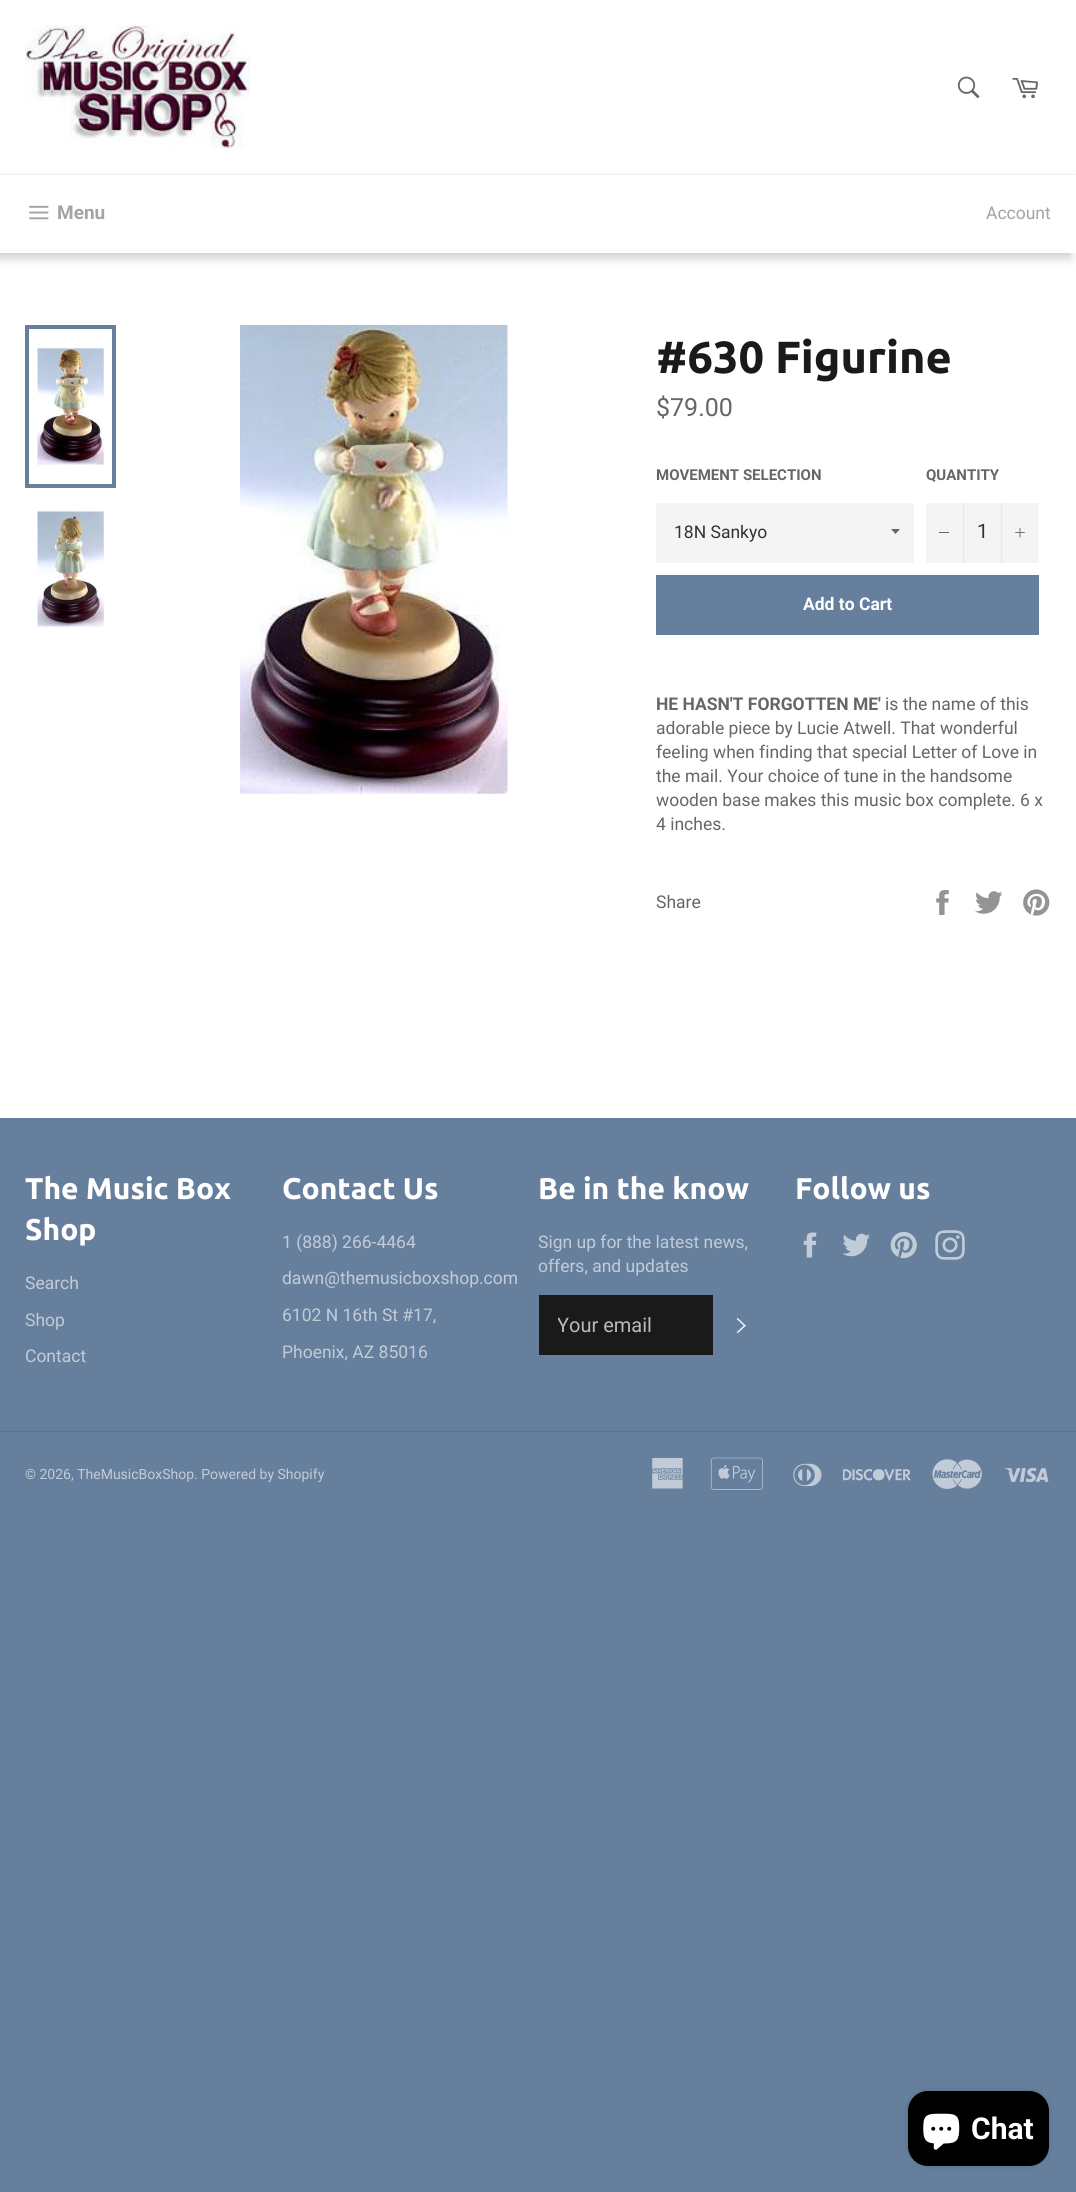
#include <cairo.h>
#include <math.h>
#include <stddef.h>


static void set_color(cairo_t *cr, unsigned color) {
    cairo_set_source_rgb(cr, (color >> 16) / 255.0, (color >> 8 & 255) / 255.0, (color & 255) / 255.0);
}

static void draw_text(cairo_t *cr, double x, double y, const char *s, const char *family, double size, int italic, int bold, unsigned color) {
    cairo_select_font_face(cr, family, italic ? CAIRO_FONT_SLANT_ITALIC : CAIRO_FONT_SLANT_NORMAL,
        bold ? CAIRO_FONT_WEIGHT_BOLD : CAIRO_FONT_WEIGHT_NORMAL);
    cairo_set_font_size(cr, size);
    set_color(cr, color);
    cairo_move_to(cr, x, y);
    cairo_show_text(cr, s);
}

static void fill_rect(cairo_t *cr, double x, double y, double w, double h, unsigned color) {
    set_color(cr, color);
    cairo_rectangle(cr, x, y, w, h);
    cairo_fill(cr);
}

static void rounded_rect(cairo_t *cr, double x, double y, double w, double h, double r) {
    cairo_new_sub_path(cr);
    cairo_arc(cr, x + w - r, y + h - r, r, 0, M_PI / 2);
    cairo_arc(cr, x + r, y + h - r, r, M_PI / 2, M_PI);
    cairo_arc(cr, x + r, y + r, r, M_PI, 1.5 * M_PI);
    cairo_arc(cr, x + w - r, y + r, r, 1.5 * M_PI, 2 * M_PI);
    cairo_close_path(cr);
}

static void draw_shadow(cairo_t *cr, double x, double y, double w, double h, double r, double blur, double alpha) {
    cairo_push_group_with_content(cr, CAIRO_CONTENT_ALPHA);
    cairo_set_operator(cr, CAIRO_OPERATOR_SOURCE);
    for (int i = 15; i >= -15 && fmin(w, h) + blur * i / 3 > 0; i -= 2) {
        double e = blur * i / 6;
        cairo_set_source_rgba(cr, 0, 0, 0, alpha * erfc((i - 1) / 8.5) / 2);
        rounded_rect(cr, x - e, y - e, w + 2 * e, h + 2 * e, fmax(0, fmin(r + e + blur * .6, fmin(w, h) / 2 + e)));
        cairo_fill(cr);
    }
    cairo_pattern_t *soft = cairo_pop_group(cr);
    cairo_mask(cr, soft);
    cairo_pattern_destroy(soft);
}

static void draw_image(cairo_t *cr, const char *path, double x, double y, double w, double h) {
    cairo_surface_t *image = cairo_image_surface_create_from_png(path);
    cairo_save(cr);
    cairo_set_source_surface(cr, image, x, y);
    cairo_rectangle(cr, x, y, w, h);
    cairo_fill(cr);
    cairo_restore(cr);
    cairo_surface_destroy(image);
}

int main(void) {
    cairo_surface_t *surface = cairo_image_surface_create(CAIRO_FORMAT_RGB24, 1076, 2192);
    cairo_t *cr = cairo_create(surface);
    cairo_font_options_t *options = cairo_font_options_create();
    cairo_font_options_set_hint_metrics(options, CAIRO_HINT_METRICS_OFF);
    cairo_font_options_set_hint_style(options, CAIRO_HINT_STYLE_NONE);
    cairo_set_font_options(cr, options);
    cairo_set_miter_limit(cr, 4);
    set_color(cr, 0x667F9D);
    cairo_paint(cr);
    fill_rect(cr, 0, 0, 1076, 1118, 0xFFFFFF);
    draw_image(cr, "assets/img1.png", 25, 25, 225, 124);
    draw_image(cr, "assets/img2.png", 957, 76, 23, 23);
    draw_image(cr, "assets/img3.png", 1012, 78, 26, 21);
    set_color(cr, 0x000000);
    draw_shadow(cr, -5, 179, 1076, 79, 0, 5, 0.2);
    fill_rect(cr, 0, 175, 1076, 78, 0xFFFFFF);
    fill_rect(cr, 0, 174, 1076, 1, 0xF2F2F2);
    draw_image(cr, "assets/img4.png", 29, 205, 20, 15);
    draw_text(cr, 57, 219, "Menu", "Roboto", 19, 0, 1, 0xA3A3A3);
    draw_text(cr, 986, 219, "Account", "Roboto", 17.5, 0, 0, 0xA3A3A3);
    draw_image(cr, "assets/img5.png", 37, 348, 67, 117);
    cairo_rectangle(cr, 27, 327, 87, 159);
    set_color(cr, 0x667F9D);
    cairo_set_line_width(cr, 4);
    cairo_stroke(cr);
    draw_image(cr, "assets/img6.png", 37, 511, 67, 116);
    draw_image(cr, "assets/img7.png", 240, 325, 268, 469);
    draw_text(cr, 656, 373, "#630 Figurine", "Ubuntu", 45, 0, 1, 0x1A1A1A);
    draw_text(cr, 656, 416, "$79.00", "Roboto", 25, 0, 0, 0x666666);
    draw_text(cr, 656, 480, "MOVEMENT SELECTION", "Roboto", 15, 0, 1, 0x666666);
    fill_rect(cr, 656, 503, 258, 60, 0xF4F4F4);
    set_color(cr, 0x666666);
    cairo_new_path(cr);
    cairo_move_to(cr, 891, 529);
    cairo_line_to(cr, 895.5, 534);
    cairo_line_to(cr, 900, 529);
    cairo_close_path(cr);
    cairo_fill(cr);
    draw_text(cr, 674, 538, "18N Sankyo", "Roboto", 17.5, 0, 0, 0x333333);
    draw_text(cr, 926, 480, "QUANTITY", "Roboto", 15, 0, 1, 0x666666);
    fill_rect(cr, 926, 503, 113, 60, 0xF4F4F4);
    fill_rect(cr, 963, 503, 1, 60, 0xE7E7E7);
    fill_rect(cr, 939, 532, 10, 1, 0x666666);
    draw_text(cr, 977, 538, "1", "Roboto", 20, 0, 0, 0x333333);
    fill_rect(cr, 1001, 503, 1, 60, 0xE7E7E7);
    draw_image(cr, "assets/img8.png", 1015, 528, 10, 10);
    fill_rect(cr, 656, 575, 383, 60, 0x667F9D);
    draw_text(cr, 803, 610, "Add to Cart", "Roboto", 17.5, 0, 1, 0xFFFFFF);
    draw_text(cr, 656, 710, "HE HASN'T FORGOTTEN ME'", "Roboto", 17.5, 0, 1, 0x666666);
    draw_text(cr, 885, 710, "is the name of this", "Roboto", 17.5, 0, 0, 0x666666);
    draw_text(cr, 656, 734, "adorable piece by Lucie Atwell. That wonderful", "Roboto", 17.5, 0, 0, 0x666666);
    draw_text(cr, 656, 758, "feeling when finding that special Letter of Love in", "Roboto", 17.5, 0, 0, 0x666666);
    draw_text(cr, 656, 782, "the mail. Your choice of tune in the handsome", "Roboto", 17.5, 0, 0, 0x666666);
    draw_text(cr, 656, 806, "wooden base makes this music box complete. 6 x", "Roboto", 17.5, 0, 0, 0x666666);
    draw_text(cr, 656, 830, "4 inches.", "Roboto", 17.5, 0, 0, 0x666666);
    draw_text(cr, 656, 908, "Share", "Roboto", 17.5, 0, 0, 0x666666);
    draw_image(cr, "assets/img9.png", 936, 890, 13, 25);
    draw_image(cr, "assets/img10.png", 975, 891, 28, 23);
    draw_image(cr, "assets/img11.png", 1023, 889, 27, 27);
    draw_text(cr, 25, 1199, "The Music Box", "Ubuntu", 30, 0, 1, 0xFFFFFF);
    draw_text(cr, 25, 1240, "Shop", "Ubuntu", 30, 0, 1, 0xFFFFFF);
    draw_text(cr, 25, 1289, "Search", "Roboto", 17.5, 0, 0, 0xC2CCD8);
    draw_text(cr, 25, 1326, "Shop", "Roboto", 17.5, 0, 0, 0xC2CCD8);
    draw_text(cr, 25, 1362, "Contact", "Roboto", 17.5, 0, 0, 0xC2CCD8);
    draw_text(cr, 282, 1199, "Contact Us", "Ubuntu", 30, 0, 1, 0xFFFFFF);
    draw_text(cr, 282, 1248, "1 (888) 266-4464", "Roboto", 17.5, 0, 0, 0xC2CCD8);
    draw_text(cr, 282, 1284, "dawn@themusicboxshop.com", "Roboto", 17.5, 0, 0, 0xC2CCD8);
    draw_text(cr, 282, 1321, "6102 N 16th St #17,", "Roboto", 17.5, 0, 0, 0xC2CCD8);
    draw_text(cr, 282, 1358, "Phoenix, AZ 85016", "Roboto", 17.5, 0, 0, 0xC2CCD8);
    draw_text(cr, 538, 1199, "Be in the know", "Ubuntu", 30, 0, 1, 0xFFFFFF);
    draw_text(cr, 538, 1248, "Sign up for the latest news,", "Roboto", 17.5, 0, 0, 0xC2CCD8);
    draw_text(cr, 538, 1272, "offers, and updates", "Roboto", 17.5, 0, 0, 0xC2CCD8);
    fill_rect(cr, 539, 1295, 174, 60, 0x1A1A1A);
    cairo_save(cr);
    cairo_rectangle(cr, 558, 1313, 136, 23);
    cairo_clip(cr);
    draw_text(cr, 557, 1332, "Your email", "Roboto", 20, 0, 0, 0xBABABA);
    cairo_restore(cr);
    draw_image(cr, "assets/img12.png", 736, 1318, 10, 16);
    draw_text(cr, 795, 1199, "Follow us", "Ubuntu", 30, 0, 1, 0xFFFFFF);
    draw_image(cr, "assets/img13.png", 803, 1232, 14, 26);
    draw_image(cr, "assets/img14.png", 842, 1233, 28, 24);
    draw_image(cr, "assets/img15.png", 890, 1231, 27, 28);
    draw_image(cr, "assets/img16.png", 935, 1230, 30, 30);
    fill_rect(cr, 0, 1431, 1076, 1, 0x5B728E);
    draw_text(cr, 25, 1479, "© 2026, TheMusicBoxShop. Powered by Shopify", "Roboto", 14, 0, 0, 0xC2CCD8);
    draw_image(cr, "assets/img17.png", 652, 1458, 31, 31);
    draw_image(cr, "assets/img18.png", 710, 1457, 53, 33);
    draw_image(cr, "assets/img19.png", 793, 1463, 29, 24);
    draw_image(cr, "assets/img20.png", 843, 1469, 68, 12);
    draw_image(cr, "assets/img21.png", 932, 1459, 50, 30);
    draw_image(cr, "assets/img22.png", 1004, 1467, 45, 16);
    set_color(cr, 0x000000);
    draw_shadow(cr, 908, 2091, 141, 75, 20, 3, 0.15);
    set_color(cr, 0x000000);
    rounded_rect(cr, 908, 2091, 141, 75, 20);
    cairo_fill(cr);
    draw_image(cr, "assets/img23.png", 923, 2113, 37, 37);
    draw_text(cr, 971, 2139, "Chat", "Roboto", 30, 0, 1, 0xFFFFFF);
    cairo_surface_write_to_png(surface, "output.png");
    cairo_font_options_destroy(options);
    cairo_destroy(cr);
    cairo_surface_destroy(surface);
    return 0;
}
